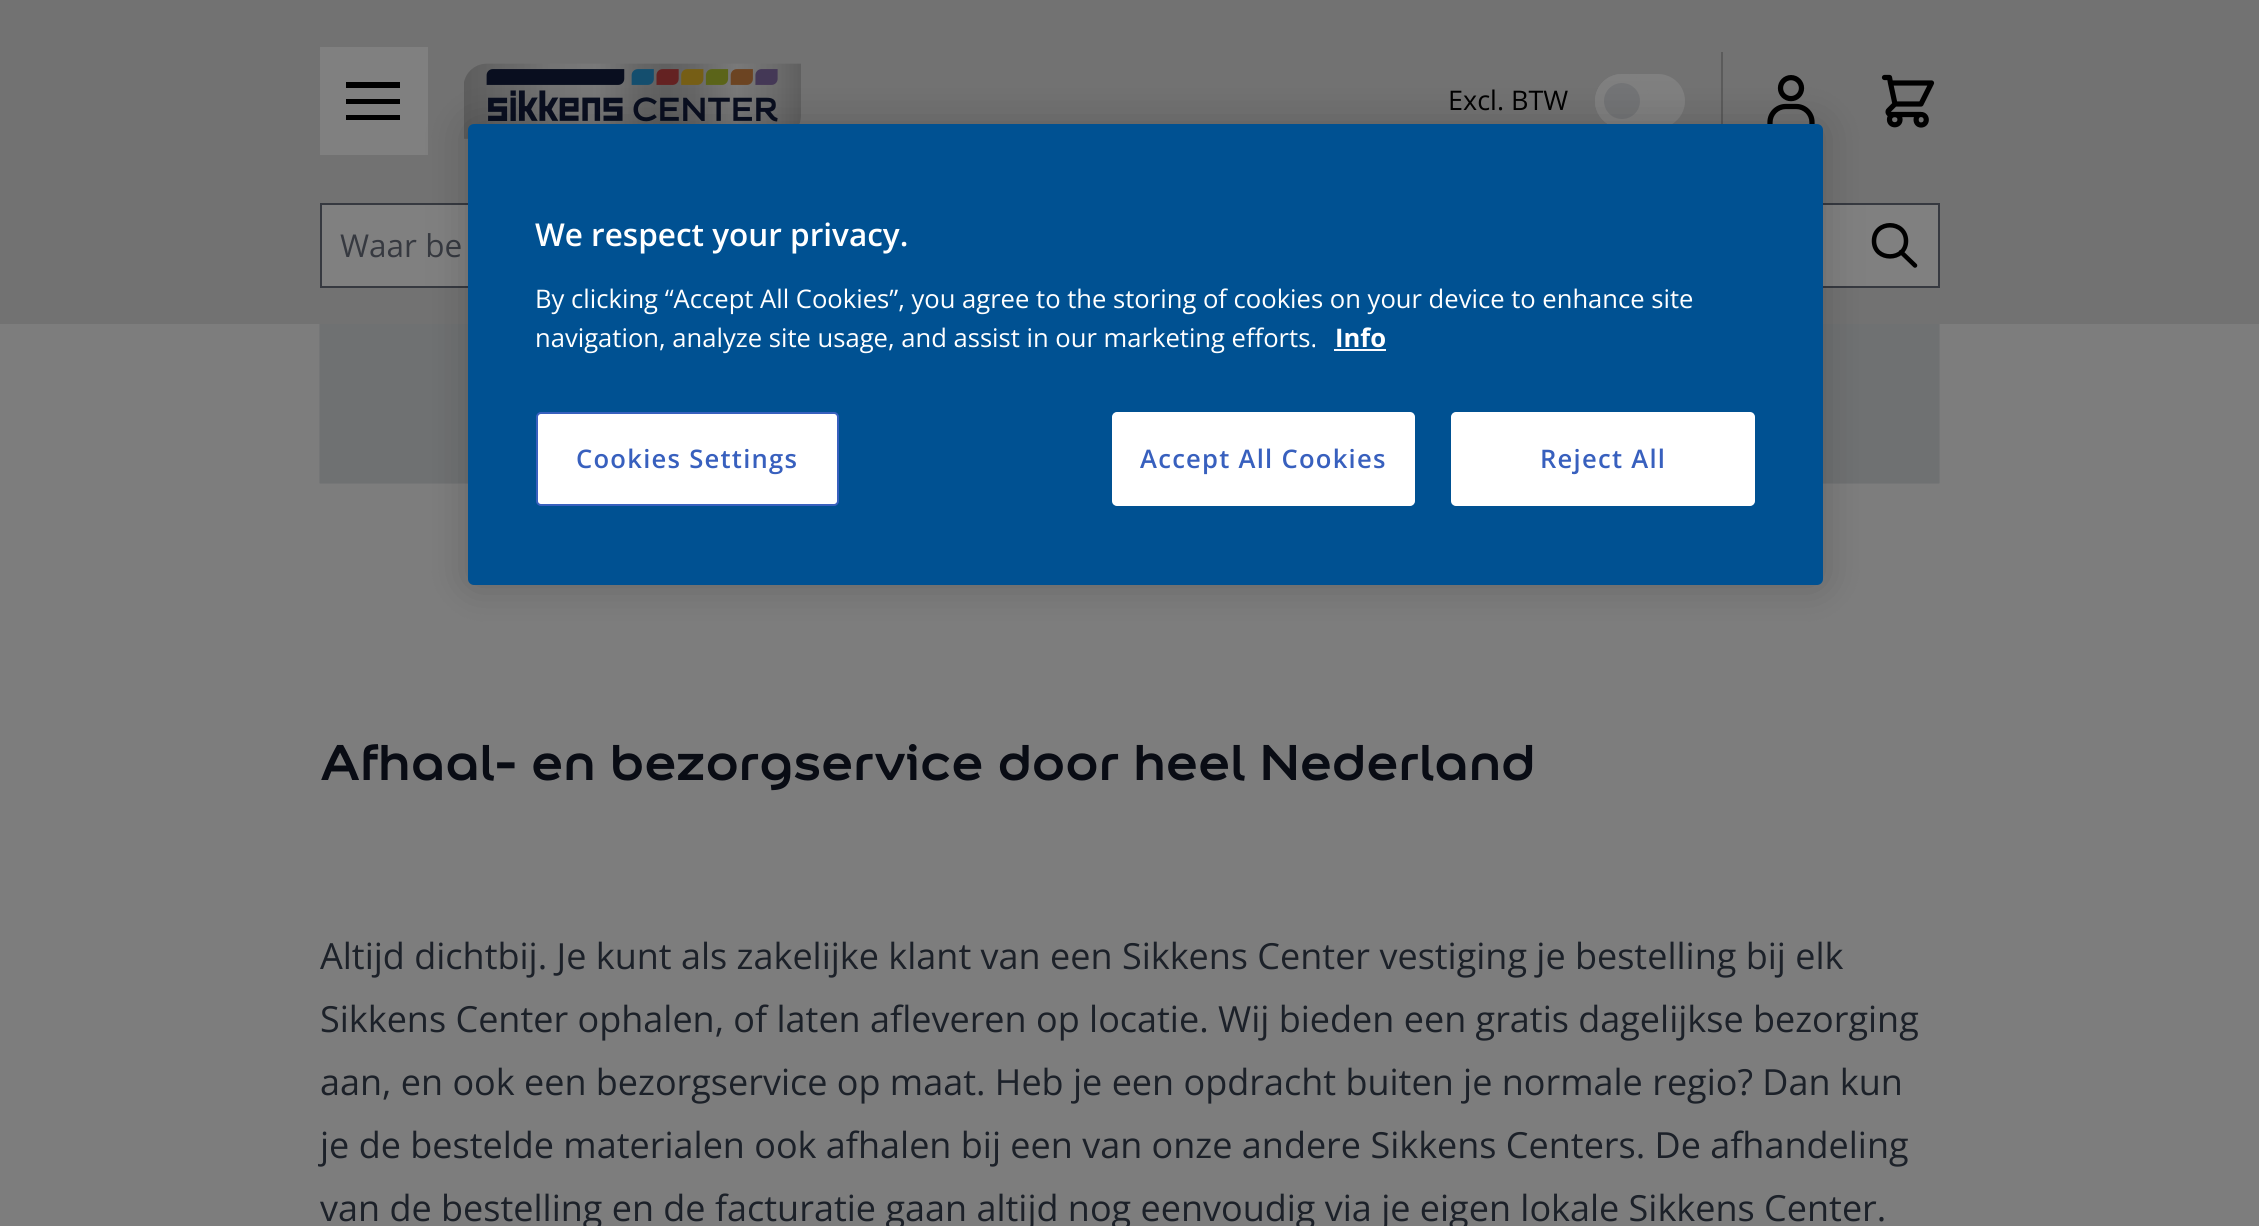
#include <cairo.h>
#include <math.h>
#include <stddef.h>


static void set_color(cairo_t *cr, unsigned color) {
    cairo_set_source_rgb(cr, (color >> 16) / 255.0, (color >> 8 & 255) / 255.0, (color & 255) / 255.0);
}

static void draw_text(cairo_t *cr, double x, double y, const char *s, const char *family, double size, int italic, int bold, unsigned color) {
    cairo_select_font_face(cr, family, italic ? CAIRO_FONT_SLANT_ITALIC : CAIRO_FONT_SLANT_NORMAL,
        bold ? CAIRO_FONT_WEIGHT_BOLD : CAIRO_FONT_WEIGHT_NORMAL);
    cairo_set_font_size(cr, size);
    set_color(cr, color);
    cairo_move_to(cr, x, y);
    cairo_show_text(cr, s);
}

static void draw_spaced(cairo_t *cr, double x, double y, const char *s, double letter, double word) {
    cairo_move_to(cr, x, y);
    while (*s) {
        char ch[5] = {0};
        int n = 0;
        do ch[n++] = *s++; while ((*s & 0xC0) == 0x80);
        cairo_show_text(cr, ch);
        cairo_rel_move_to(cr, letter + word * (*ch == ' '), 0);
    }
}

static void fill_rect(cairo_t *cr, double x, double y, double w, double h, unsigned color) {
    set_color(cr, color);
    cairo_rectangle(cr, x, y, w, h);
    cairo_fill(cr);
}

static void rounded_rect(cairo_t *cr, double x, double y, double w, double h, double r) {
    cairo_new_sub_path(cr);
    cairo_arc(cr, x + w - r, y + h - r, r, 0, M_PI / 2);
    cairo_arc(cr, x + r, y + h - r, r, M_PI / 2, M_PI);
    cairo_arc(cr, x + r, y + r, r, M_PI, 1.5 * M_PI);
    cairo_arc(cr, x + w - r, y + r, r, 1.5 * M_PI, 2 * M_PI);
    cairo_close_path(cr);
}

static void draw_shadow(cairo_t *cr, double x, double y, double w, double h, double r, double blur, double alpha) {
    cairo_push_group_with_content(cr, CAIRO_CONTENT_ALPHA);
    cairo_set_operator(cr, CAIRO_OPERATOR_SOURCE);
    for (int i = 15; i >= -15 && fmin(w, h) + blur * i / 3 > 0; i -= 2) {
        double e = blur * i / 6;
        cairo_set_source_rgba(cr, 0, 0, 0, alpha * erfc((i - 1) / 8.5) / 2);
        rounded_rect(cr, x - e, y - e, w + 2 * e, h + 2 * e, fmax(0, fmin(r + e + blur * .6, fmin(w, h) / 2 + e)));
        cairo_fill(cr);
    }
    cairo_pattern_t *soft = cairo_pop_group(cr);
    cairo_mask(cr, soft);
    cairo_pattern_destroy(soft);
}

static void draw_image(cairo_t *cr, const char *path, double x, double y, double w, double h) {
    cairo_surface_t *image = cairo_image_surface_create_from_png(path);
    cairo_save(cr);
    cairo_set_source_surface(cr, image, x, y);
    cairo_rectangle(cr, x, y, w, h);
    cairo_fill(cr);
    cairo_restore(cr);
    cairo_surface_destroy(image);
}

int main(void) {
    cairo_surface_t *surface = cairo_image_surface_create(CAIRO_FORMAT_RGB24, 2259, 1226);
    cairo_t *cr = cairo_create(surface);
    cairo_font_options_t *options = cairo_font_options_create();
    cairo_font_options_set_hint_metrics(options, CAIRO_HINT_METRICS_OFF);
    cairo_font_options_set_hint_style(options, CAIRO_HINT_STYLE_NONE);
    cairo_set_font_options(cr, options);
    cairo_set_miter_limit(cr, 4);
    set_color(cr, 0x7D7D7D);
    cairo_paint(cr);
    fill_rect(cr, 0, 0, 2259, 324, 0x727272);
    fill_rect(cr, 320, 47, 108, 108, 0x808080);
    set_color(cr, 0x000000);
    cairo_new_path(cr);
    cairo_move_to(cr, 346, 82);
    cairo_line_to(cr, 400, 82);
    cairo_line_to(cr, 400, 88);
    cairo_line_to(cr, 346, 88);
    cairo_close_path(cr);
    cairo_move_to(cr, 346, 99);
    cairo_line_to(cr, 400, 99);
    cairo_line_to(cr, 400, 104);
    cairo_line_to(cr, 346, 104);
    cairo_close_path(cr);
    cairo_move_to(cr, 346, 115);
    cairo_line_to(cr, 400, 115);
    cairo_line_to(cr, 400, 120);
    cairo_line_to(cr, 346, 120);
    cairo_close_path(cr);
    cairo_fill(cr);
    draw_image(cr, "assets/img1.png", 464, 63, 337, 76);
    draw_text(cr, 1448, 110, "Excl. BTW", "Open Sans", 27, 0, 0, 0x000000);
    set_color(cr, 0x808080);
    rounded_rect(cr, 1595, 74, 90, 54, 27);
    cairo_fill(cr);
    set_color(cr, 0x737476);
    cairo_arc(cr, 1622, 101, 22.5, 0, 2 * M_PI);
    cairo_fill_preserve(cr);
    set_color(cr, 0x808080);
    cairo_set_line_width(cr, 9);
    cairo_stroke(cr);
    fill_rect(cr, 1721, 52, 2, 72, 0x5B5B5B);
    draw_image(cr, "assets/img2.png", 1767, 75, 48, 49);
    cairo_new_path(cr);
    cairo_move_to(cr, 1884.5, 77.5);
    cairo_line_to(cr, 1889.5, 77.5);
    cairo_line_to(cr, 1890.5, 83);
    cairo_move_to(cr, 1895, 104);
    cairo_line_to(cr, 1921, 104);
    cairo_line_to(cr, 1931.5, 83);
    cairo_line_to(cr, 1890.5, 83);
    cairo_move_to(cr, 1895, 104);
    cairo_line_to(cr, 1890.5, 83);
    cairo_move_to(cr, 1895, 104);
    cairo_line_to(cr, 1889, 110);
    cairo_curve_to(cr, 1887, 111.5, 1888.5, 114.5, 1890.5, 114.5);
    cairo_line_to(cr, 1921, 114.5);
    cairo_move_to(cr, 1921, 114.5);
    cairo_curve_to(cr, 1914.5, 114.5, 1914.5, 125, 1921, 125);
    cairo_curve_to(cr, 1928, 125, 1928, 114.5, 1921, 114.5);
    cairo_close_path(cr);
    cairo_move_to(cr, 1900, 119.5);
    cairo_curve_to(cr, 1900, 126.5, 1889.5, 126.5, 1889.5, 119.5);
    cairo_curve_to(cr, 1889.5, 113, 1900, 113, 1900, 119.5);
    cairo_close_path(cr);
    set_color(cr, 0x000000);
    cairo_set_line_width(cr, 5.2);
    cairo_set_line_cap(cr, CAIRO_LINE_CAP_ROUND);
    cairo_set_line_join(cr, CAIRO_LINE_JOIN_ROUND);
    cairo_stroke(cr);
    set_color(cr, 0x808080);
    cairo_rectangle(cr, 321, 204, 1618, 83);
    cairo_fill_preserve(cr);
    set_color(cr, 0x363940);
    cairo_set_line_width(cr, 2);
    cairo_set_line_cap(cr, CAIRO_LINE_CAP_BUTT);
    cairo_set_line_join(cr, CAIRO_LINE_JOIN_MITER);
    cairo_stroke(cr);
    draw_text(cr, 340, 257, "Waar be", "Open Sans", 31.5, 0, 0, 0x363940);
    cairo_new_path(cr);
    cairo_move_to(cr, 1915, 265.5);
    cairo_line_to(cr, 1901, 252);
    cairo_move_to(cr, 1906, 241);
    cairo_curve_to(cr, 1906, 261.5, 1874, 261.5, 1874, 241);
    cairo_curve_to(cr, 1874, 220, 1906, 220, 1906, 241);
    cairo_close_path(cr);
    set_color(cr, 0x000000);
    cairo_set_line_width(cr, 4.5);
    cairo_set_line_cap(cr, CAIRO_LINE_CAP_ROUND);
    cairo_set_line_join(cr, CAIRO_LINE_JOIN_ROUND);
    cairo_stroke(cr);
    draw_image(cr, "assets/img3.png", 319, 324, 1621, 160);
    draw_text(cr, 320, 780, "Afhaal- en bezorgservice door heel Nederland", "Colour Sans", 54, 0, 1, 0x090C14);
    draw_text(cr, 320, 969, "Altijd dichtbij. Je kunt als zakelijke klant van een Sikkens Center vestiging je bestelling bij elk", "Open Sans", 36, 0, 0, 0x1C2129);
    draw_text(cr, 320, 1032, "Sikkens Center ophalen, of laten afleveren op locatie. Wij bieden een gratis dagelijkse bezorging", "Open Sans", 36, 0, 0, 0x1C2129);
    draw_text(cr, 320, 1095, "aan, en ook een bezorgservice op maat. Heb je een opdracht buiten je normale regio? Dan kun", "Open Sans", 36, 0, 0, 0x1C2129);
    draw_text(cr, 320, 1158, "je de bestelde materialen ook afhalen bij een van onze andere Sikkens Centers. De afhandeling", "Open Sans", 36, 0, 0, 0x1C2129);
    draw_text(cr, 320, 1221, "van de bestelling en de facturatie gaan altijd nog eenvoudig via je eigen lokale Sikkens Center.", "Open Sans", 36, 0, 0, 0x1C2129);
    set_color(cr, 0x000000);
    draw_shadow(cr, 468, 124, 1355, 461, 6, 20, 0.2);
    set_color(cr, 0x005192);
    rounded_rect(cr, 468, 124, 1355, 461, 6);
    cairo_fill(cr);
    draw_text(cr, 535, 246, "We respect your privacy.", "Open Sans SemiBold", 31.5, 0, 0, 0xFFFFFF);
    draw_text(cr, 535, 308, "By clicking “Accept All Cookies”, you agree to the storing of cookies on your device to enhance site", "Open Sans", 25.6, 0, 0, 0xFFFFFF);
    draw_text(cr, 535, 347, "navigation, analyze site usage, and assist in our marketing efforts.", "Open Sans", 25.6, 0, 0, 0xFFFFFF);
    draw_text(cr, 1335, 347, "Info", "Open Sans", 25.6, 0, 1, 0xFFFFFF);
    fill_rect(cr, 1334, 349, 52, 2, 0xFAFBFF);
    set_color(cr, 0xFFFFFF);
    rounded_rect(cr, 537, 413, 301, 92, 4);
    cairo_fill_preserve(cr);
    set_color(cr, 0x3860BE);
    cairo_set_line_width(cr, 2);
    cairo_set_line_cap(cr, CAIRO_LINE_CAP_BUTT);
    cairo_set_line_join(cr, CAIRO_LINE_JOIN_MITER);
    cairo_stroke(cr);
    cairo_select_font_face(cr, "Open Sans SemiBold", CAIRO_FONT_SLANT_NORMAL, CAIRO_FONT_WEIGHT_NORMAL);
    draw_spaced(cr, 576, 468, "Cookies Settings", 1.25, 0);
    set_color(cr, 0xFFFFFF);
    rounded_rect(cr, 1113, 413, 301, 92, 4);
    cairo_fill_preserve(cr);
    cairo_stroke(cr);
    set_color(cr, 0x3860BE);
    draw_spaced(cr, 1140, 468, "Accept All Cookies", 1.25, 0);
    set_color(cr, 0xFFFFFF);
    rounded_rect(cr, 1452, 413, 302, 92, 4);
    cairo_fill_preserve(cr);
    cairo_stroke(cr);
    set_color(cr, 0x3860BE);
    draw_spaced(cr, 1540, 468, "Reject All", 1.25, 0);
    cairo_surface_write_to_png(surface, "output.png");
    cairo_font_options_destroy(options);
    cairo_destroy(cr);
    cairo_surface_destroy(surface);
    return 0;
}
